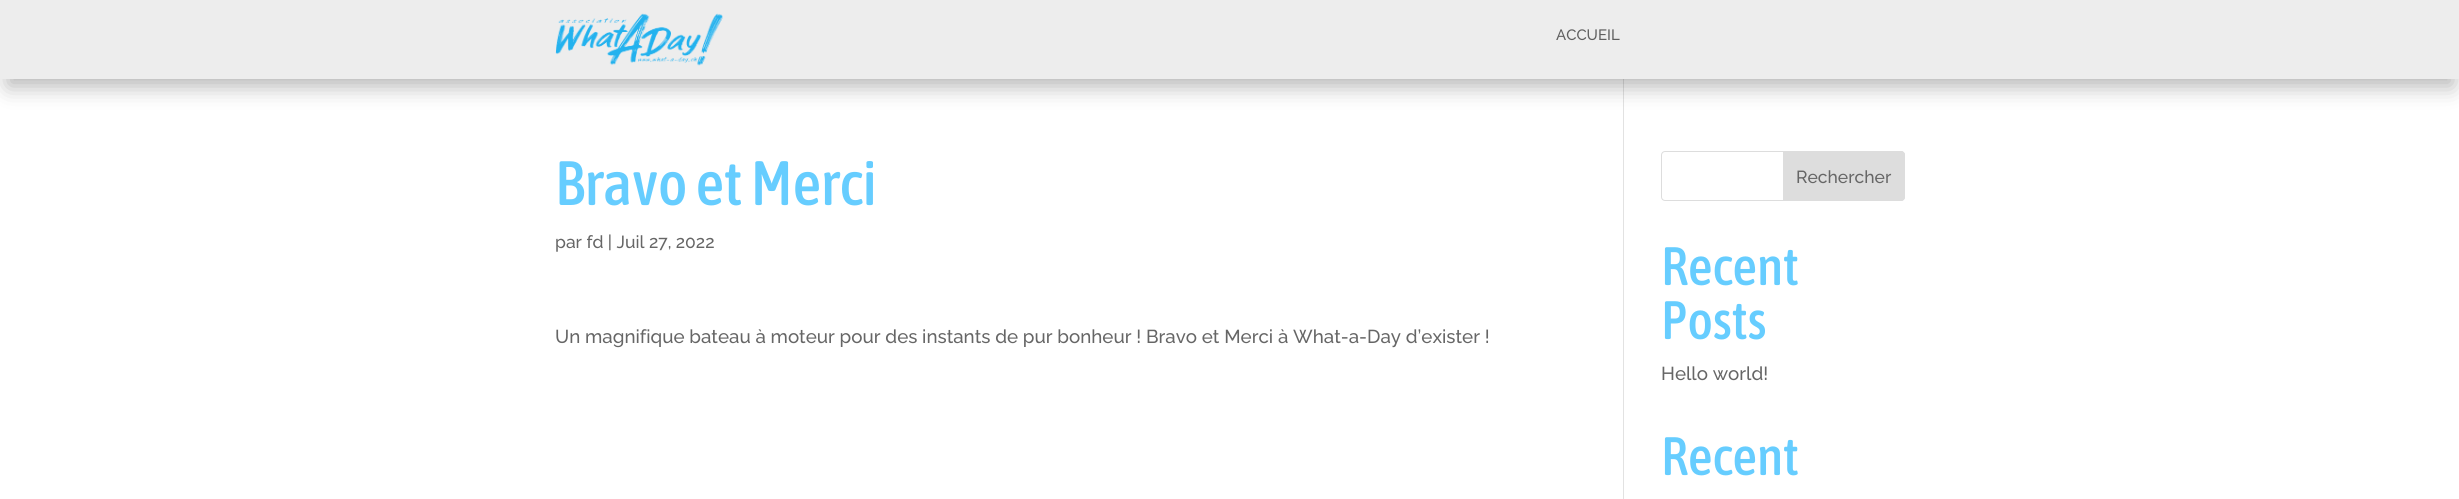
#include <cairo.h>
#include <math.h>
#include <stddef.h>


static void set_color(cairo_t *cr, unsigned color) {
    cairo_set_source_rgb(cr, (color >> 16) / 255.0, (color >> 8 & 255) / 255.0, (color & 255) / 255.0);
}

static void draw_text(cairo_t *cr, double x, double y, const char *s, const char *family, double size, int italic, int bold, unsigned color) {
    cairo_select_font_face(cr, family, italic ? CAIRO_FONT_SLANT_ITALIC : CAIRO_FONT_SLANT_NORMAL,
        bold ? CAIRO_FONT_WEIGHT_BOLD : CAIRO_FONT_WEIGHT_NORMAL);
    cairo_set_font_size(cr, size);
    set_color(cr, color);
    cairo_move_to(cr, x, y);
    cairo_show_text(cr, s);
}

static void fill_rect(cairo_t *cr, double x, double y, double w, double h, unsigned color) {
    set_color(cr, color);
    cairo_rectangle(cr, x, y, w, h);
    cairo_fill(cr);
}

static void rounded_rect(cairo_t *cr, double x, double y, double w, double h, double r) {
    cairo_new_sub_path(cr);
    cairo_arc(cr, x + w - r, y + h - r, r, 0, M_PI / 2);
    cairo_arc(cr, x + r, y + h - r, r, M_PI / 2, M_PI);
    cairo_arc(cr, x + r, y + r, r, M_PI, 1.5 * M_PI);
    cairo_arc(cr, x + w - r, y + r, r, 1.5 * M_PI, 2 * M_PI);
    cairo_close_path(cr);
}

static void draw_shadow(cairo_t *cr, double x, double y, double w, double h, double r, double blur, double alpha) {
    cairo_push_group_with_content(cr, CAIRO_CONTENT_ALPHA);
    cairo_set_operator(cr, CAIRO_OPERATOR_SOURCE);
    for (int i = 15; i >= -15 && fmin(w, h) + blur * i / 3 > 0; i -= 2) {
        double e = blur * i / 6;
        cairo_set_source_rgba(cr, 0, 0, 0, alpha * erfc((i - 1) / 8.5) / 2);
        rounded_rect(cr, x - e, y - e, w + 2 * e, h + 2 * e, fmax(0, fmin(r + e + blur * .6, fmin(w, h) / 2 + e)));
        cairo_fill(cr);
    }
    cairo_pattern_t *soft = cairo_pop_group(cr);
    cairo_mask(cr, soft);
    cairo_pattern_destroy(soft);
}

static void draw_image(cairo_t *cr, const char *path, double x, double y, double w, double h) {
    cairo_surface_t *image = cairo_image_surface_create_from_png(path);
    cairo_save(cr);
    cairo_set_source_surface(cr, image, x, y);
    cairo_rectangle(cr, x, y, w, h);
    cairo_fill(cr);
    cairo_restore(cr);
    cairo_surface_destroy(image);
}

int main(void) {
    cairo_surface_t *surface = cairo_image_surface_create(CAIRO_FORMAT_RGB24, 2459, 499);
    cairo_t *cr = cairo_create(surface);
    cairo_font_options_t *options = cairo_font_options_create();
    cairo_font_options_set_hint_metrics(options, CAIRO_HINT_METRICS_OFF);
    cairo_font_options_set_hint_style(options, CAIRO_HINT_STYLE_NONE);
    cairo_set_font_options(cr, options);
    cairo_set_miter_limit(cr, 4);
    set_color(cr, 0xFFFFFF);
    cairo_paint(cr);
    fill_rect(cr, 1623, 79, 1, 420, 0xE2E2E2);
    set_color(cr, 0x000000);
    draw_shadow(cr, 8, 23, 2445, 63, 0, 11, 0.3);
    fill_rect(cr, 0, 0, 2459, 79, 0xEDEDED);
    draw_image(cr, "assets/img1.png", 555, 13, 168, 53);
    draw_text(cr, 1556, 40, "ACCUEIL", "Raleway Thin", 15, 0, 0, 0x5F5F5F);
    draw_text(cr, 555, 205, "Bravo et Merci", "Asap Condensed Medium", 62.5, 0, 0, 0x66CDFF);
    draw_text(cr, 555, 248, "par fd | Juil 27, 2022", "Raleway Thin", 17.5, 0, 0, 0x666666);
    draw_text(cr, 555, 343, "Un magnifique bateau à moteur pour des instants de pur bonheur ! Bravo et Merci à What-a-Day d’exister !", "Raleway Thin", 18.75, 0, 0, 0x666666);
    rounded_rect(cr, 1661.5, 151.5, 243, 49, 3.5);
    set_color(cr, 0xDDDDDD);
    cairo_set_line_width(cr, 1);
    cairo_stroke(cr);
    cairo_new_path(cr);
    cairo_move_to(cr, 1783.5, 151.5);
    cairo_line_to(cr, 1901, 151.5);
    cairo_curve_to(cr, 1903, 151.5, 1904.5, 153, 1904.5, 155);
    cairo_line_to(cr, 1904.5, 197);
    cairo_curve_to(cr, 1904.5, 199, 1903, 200.5, 1901, 200.5);
    cairo_line_to(cr, 1783.5, 200.5);
    cairo_close_path(cr);
    cairo_fill_preserve(cr);
    cairo_stroke(cr);
    draw_text(cr, 1796, 183, "Rechercher", "Raleway Thin", 17.5, 0, 0, 0x666666);
    draw_text(cr, 1661, 285, "Recent", "Asap Condensed Medium", 54, 0, 0, 0x66CDFF);
    draw_text(cr, 1661, 339, "Posts", "Asap Condensed Medium", 54, 0, 0, 0x66CDFF);
    draw_text(cr, 1661, 380, "Hello world!", "Raleway Thin", 18.75, 0, 0, 0x666666);
    draw_text(cr, 1661, 475, "Recent", "Asap Condensed Medium", 54, 0, 0, 0x66CDFF);
    cairo_surface_write_to_png(surface, "output.png");
    cairo_font_options_destroy(options);
    cairo_destroy(cr);
    cairo_surface_destroy(surface);
    return 0;
}
